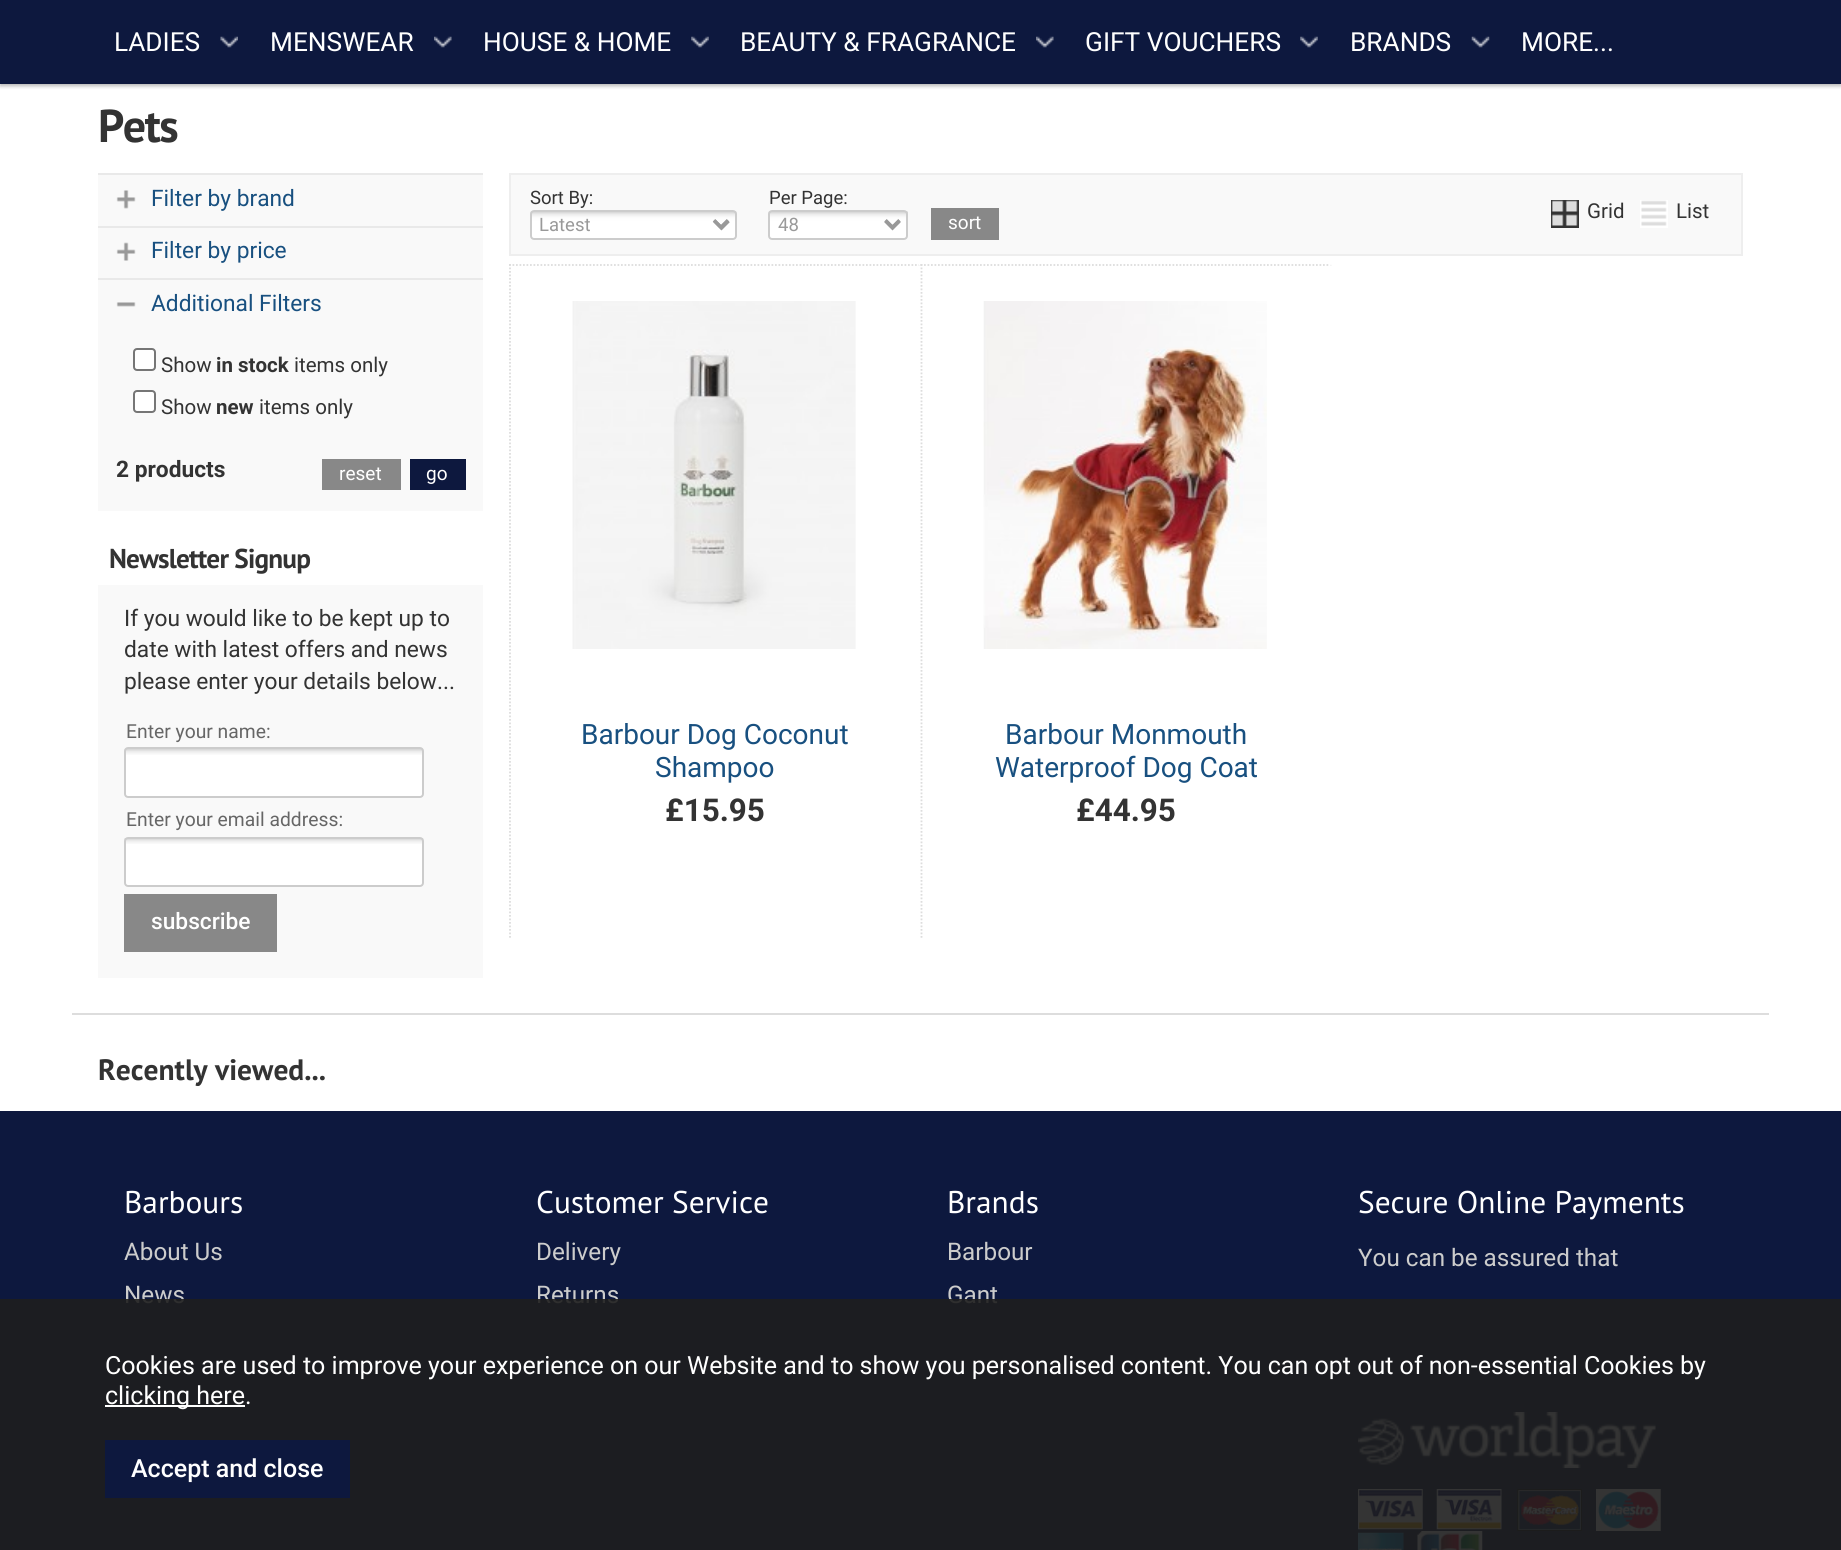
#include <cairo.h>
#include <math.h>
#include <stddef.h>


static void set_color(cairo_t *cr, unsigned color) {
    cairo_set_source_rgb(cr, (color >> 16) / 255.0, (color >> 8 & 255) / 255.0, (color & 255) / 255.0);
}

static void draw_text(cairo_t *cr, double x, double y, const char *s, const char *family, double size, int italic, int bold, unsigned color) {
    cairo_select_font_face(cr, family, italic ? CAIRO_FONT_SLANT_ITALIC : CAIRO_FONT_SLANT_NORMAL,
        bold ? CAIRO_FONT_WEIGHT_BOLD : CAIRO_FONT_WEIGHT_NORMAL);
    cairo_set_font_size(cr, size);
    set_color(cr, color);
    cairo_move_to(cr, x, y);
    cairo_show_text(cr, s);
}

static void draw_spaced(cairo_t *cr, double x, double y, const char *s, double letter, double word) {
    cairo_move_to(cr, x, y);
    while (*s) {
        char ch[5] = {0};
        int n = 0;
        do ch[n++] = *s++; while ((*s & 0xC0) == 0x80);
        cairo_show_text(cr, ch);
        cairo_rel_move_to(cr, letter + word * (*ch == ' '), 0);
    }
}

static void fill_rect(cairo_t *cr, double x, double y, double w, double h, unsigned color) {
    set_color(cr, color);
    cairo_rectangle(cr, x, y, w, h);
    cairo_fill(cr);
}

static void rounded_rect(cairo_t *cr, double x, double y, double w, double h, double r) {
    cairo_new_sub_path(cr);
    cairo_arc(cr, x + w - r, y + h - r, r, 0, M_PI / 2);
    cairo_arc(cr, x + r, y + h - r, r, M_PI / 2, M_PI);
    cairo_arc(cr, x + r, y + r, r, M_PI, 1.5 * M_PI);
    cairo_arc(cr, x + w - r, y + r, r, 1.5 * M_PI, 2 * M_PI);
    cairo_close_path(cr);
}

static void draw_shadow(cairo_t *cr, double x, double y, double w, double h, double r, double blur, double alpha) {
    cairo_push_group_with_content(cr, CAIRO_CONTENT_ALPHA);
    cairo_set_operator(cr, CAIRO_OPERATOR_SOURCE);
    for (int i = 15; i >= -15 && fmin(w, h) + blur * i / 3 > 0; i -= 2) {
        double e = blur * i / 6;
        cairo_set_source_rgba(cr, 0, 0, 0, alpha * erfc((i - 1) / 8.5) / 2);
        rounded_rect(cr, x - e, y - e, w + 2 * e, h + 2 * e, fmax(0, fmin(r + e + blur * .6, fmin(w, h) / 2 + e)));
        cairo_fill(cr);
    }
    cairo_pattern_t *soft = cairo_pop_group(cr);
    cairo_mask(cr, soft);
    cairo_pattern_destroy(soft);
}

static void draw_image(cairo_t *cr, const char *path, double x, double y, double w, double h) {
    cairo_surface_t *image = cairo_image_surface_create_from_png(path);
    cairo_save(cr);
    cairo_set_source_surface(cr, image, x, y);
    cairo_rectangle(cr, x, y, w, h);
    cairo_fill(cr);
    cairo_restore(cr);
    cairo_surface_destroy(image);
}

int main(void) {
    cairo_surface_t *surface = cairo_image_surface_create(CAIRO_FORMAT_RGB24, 1841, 1550);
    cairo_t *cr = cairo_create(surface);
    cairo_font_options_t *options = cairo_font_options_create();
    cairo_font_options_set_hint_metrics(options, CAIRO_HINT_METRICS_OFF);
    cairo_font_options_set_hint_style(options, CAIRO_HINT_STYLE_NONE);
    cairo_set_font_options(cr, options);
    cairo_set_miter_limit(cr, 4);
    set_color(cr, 0xFFFFFF);
    cairo_paint(cr);
    set_color(cr, 0x000000);
    draw_shadow(cr, 0, 2, 1841, 84, 0, 2, 0.3);
    fill_rect(cr, 0, 0, 1841, 84, 0x0D183E);
    draw_image(cr, "assets/img1.png", 220, 36, 18, 12);
    draw_text(cr, 114, 51, "LADIES", "Roboto", 26.25, 0, 0, 0xFFFFFF);
    draw_image(cr, "assets/img2.png", 434, 36, 18, 12);
    draw_text(cr, 270, 51, "MENSWEAR", "Roboto", 26.25, 0, 0, 0xFFFFFF);
    draw_image(cr, "assets/img3.png", 691, 36, 18, 12);
    draw_text(cr, 483, 51, "HOUSE & HOME", "Roboto", 26.25, 0, 0, 0xFFFFFF);
    draw_image(cr, "assets/img4.png", 1036, 36, 18, 12);
    draw_text(cr, 740, 51, "BEAUTY & FRAGRANCE", "Roboto", 26.25, 0, 0, 0xFFFFFF);
    draw_image(cr, "assets/img3.png", 1300, 36, 18, 12);
    draw_text(cr, 1085, 51, "GIFT VOUCHERS", "Roboto", 26.25, 0, 0, 0xFFFFFF);
    draw_image(cr, "assets/img5.png", 1471, 36, 19, 12);
    draw_text(cr, 1350, 51, "BRANDS", "Roboto", 26.25, 0, 0, 0xFFFFFF);
    draw_text(cr, 1521, 51, "MORE...", "Roboto", 26.25, 0, 0, 0xFFFFFF);
    cairo_select_font_face(cr, "PT Sans", CAIRO_FONT_SLANT_NORMAL, CAIRO_FONT_WEIGHT_BOLD);
    cairo_set_font_size(cr, 46);
    set_color(cr, 0x333333);
    draw_spaced(cr, 98, 142, "Pets", -1.5, 0);
    fill_rect(cr, 98, 175, 385, 336, 0xF9F9F9);
    draw_image(cr, "assets/img6.png", 116, 190, 20, 19);
    fill_rect(cr, 98, 173, 385, 2, 0xE9E9E9);
    draw_text(cr, 151, 206, "Filter by brand", "Roboto", 22.75, 0, 0, 0x185080);
    draw_image(cr, "assets/img7.png", 116, 242, 20, 19);
    fill_rect(cr, 98, 226, 385, 2, 0xE9E9E9);
    draw_text(cr, 151, 258, "Filter by price", "Roboto", 22.75, 0, 0, 0x185080);
    draw_image(cr, "assets/img8.png", 116, 302, 20, 5);
    fill_rect(cr, 98, 278, 385, 2, 0xE9E9E9);
    draw_text(cr, 151, 311, "Additional Filters", "Roboto", 22.75, 0, 0, 0x185080);
    set_color(cr, 0xFFFFFF);
    rounded_rect(cr, 134, 349, 21, 21, 3);
    cairo_fill_preserve(cr);
    set_color(cr, 0x767676);
    cairo_stroke(cr);
    draw_text(cr, 161, 372, "Show", "Roboto", 20.5, 0, 0, 0x333333);
    draw_text(cr, 216, 372, "in stock", "Roboto", 20.5, 0, 1, 0x333333);
    draw_text(cr, 294, 372, "items only", "Roboto", 20.5, 0, 0, 0x333333);
    set_color(cr, 0xFFFFFF);
    rounded_rect(cr, 134, 391, 21, 21, 3);
    cairo_fill_preserve(cr);
    set_color(cr, 0x767676);
    cairo_stroke(cr);
    draw_text(cr, 161, 414, "Show", "Roboto", 20.5, 0, 0, 0x333333);
    draw_text(cr, 216, 414, "new", "Roboto", 20.5, 0, 1, 0x333333);
    draw_text(cr, 259, 414, "items only", "Roboto", 20.5, 0, 0, 0x333333);
    draw_text(cr, 116, 477, "2 products", "Roboto", 22.75, 0, 1, 0x333333);
    fill_rect(cr, 322, 459, 79, 31, 0x888888);
    draw_text(cr, 339, 480, "reset", "Roboto", 19, 0, 0, 0xFFFFFF);
    fill_rect(cr, 410, 459, 56, 31, 0x0D183E);
    draw_text(cr, 426, 480, "go", "Roboto", 19, 0, 0, 0xFFFFFF);
    cairo_select_font_face(cr, "PT Sans", CAIRO_FONT_SLANT_NORMAL, CAIRO_FONT_WEIGHT_BOLD);
    cairo_set_font_size(cr, 27.25);
    set_color(cr, 0x333333);
    draw_spaced(cr, 109, 568, "Newsletter Signup", -0.8, 0);
    fill_rect(cr, 98, 585, 385, 393, 0xF9F9F9);
    draw_text(cr, 124, 626, "If you would like to be kept up to", "Roboto", 22.75, 0, 0, 0x333333);
    draw_text(cr, 124, 657, "date with latest offers and news", "Roboto", 22.75, 0, 0, 0x333333);
    draw_text(cr, 124, 689, "please enter your details below...", "Roboto", 22.75, 0, 0, 0x333333);
    draw_text(cr, 126, 738, "Enter your name:", "Roboto", 19.3, 0, 0, 0x666666);
    set_color(cr, 0xFFFFFF);
    rounded_rect(cr, 124, 747, 300, 51, 4);
    cairo_fill(cr);
    draw_image(cr, "assets/img9.png", 124, 748, 300, 7);
    rounded_rect(cr, 125, 748, 298, 49, 3);
    set_color(cr, 0xCCCCCC);
    cairo_stroke(cr);
    draw_text(cr, 126, 826, "Enter your email address:", "Roboto", 19.3, 0, 0, 0x666666);
    set_color(cr, 0xFFFFFF);
    rounded_rect(cr, 124, 837, 300, 50, 4);
    cairo_fill(cr);
    draw_image(cr, "assets/img10.png", 124, 838, 300, 6);
    rounded_rect(cr, 125, 838, 298, 48, 3);
    set_color(cr, 0xCCCCCC);
    cairo_stroke(cr);
    fill_rect(cr, 124, 894, 153, 58, 0x888888);
    draw_text(cr, 151, 929, "subscribe", "Roboto Medium", 22.75, 0, 0, 0xFFFFFF);
    set_color(cr, 0xF9F9F9);
    cairo_rectangle(cr, 510, 174, 1232, 81);
    cairo_fill_preserve(cr);
    set_color(cr, 0xEEEEEE);
    cairo_stroke(cr);
    draw_text(cr, 530, 204, "Sort By:", "Roboto", 18.5, 0, 0, 0x333333);
    set_color(cr, 0xFFFFFF);
    rounded_rect(cr, 530, 210, 207, 30, 4);
    cairo_fill(cr);
    draw_image(cr, "assets/img11.png", 530, 211, 207, 19);
    rounded_rect(cr, 531, 211, 205, 28, 3);
    set_color(cr, 0xCCCCCC);
    cairo_stroke(cr);
    cairo_new_path(cr);
    cairo_move_to(cr, 714.5, 221);
    cairo_line_to(cr, 721.5, 228);
    cairo_line_to(cr, 728.5, 221);
    set_color(cr, 0x999999);
    cairo_set_line_width(cr, 3.5);
    cairo_stroke(cr);
    draw_text(cr, 539, 231, "Latest", "Roboto", 18.5, 0, 0, 0x999999);
    draw_text(cr, 769, 204, "Per Page:", "Roboto", 18.5, 0, 0, 0x333333);
    set_color(cr, 0xFFFFFF);
    rounded_rect(cr, 768, 210, 140, 30, 4);
    cairo_fill(cr);
    draw_image(cr, "assets/img12.png", 768, 211, 140, 19);
    rounded_rect(cr, 769, 211, 138, 28, 3);
    set_color(cr, 0xCCCCCC);
    cairo_set_line_width(cr, 2);
    cairo_stroke(cr);
    cairo_new_path(cr);
    cairo_move_to(cr, 885.5, 221);
    cairo_line_to(cr, 892.5, 228);
    cairo_line_to(cr, 899.5, 221);
    set_color(cr, 0x999999);
    cairo_set_line_width(cr, 3.5);
    cairo_stroke(cr);
    draw_text(cr, 778, 231, "48", "Roboto", 18.5, 0, 0, 0x999999);
    fill_rect(cr, 931, 208, 68, 32, 0x888888);
    draw_text(cr, 948, 229, "sort", "Roboto", 19, 0, 0, 0xFFFFFF);
    fill_rect(cr, 1551, 200, 28, 28, 0x333333);
    draw_image(cr, "assets/img13.png", 1551, 200, 27, 26);
    draw_text(cr, 1587, 218, "Grid", "Roboto", 20.5, 0, 0, 0x333333);
    fill_rect(cr, 1640, 200, 28, 28, 0xFFFFFF);
    draw_image(cr, "assets/img14.png", 1641, 200, 26, 26);
    draw_text(cr, 1676, 218, "List", "Roboto", 20.5, 0, 0, 0x333333);
    cairo_new_path(cr);
    cairo_move_to(cr, 509, 265);
    cairo_line_to(cr, 920.5, 265);
    set_color(cr, 0xDDDDDD);
    cairo_set_line_width(cr, 1.8);
    cairo_set_dash(cr, (double[]){1.75, 1.75}, 2, 0);
    cairo_stroke(cr);
    cairo_new_path(cr);
    cairo_move_to(cr, 919.5, 264);
    cairo_line_to(cr, 919.5, 938);
    set_color(cr, 0xFFFFFF);
    cairo_stroke(cr);
    cairo_new_path(cr);
    cairo_move_to(cr, 510, 264);
    cairo_line_to(cr, 510, 938);
    set_color(cr, 0xDDDDDD);
    cairo_stroke(cr);
    draw_image(cr, "assets/img15.png", 572, 301, 284, 348);
    draw_text(cr, 581, 744, "Barbour Dog Coconut", "Roboto", 28, 0, 0, 0x185080);
    draw_text(cr, 655, 777, "Shampoo", "Roboto", 28, 0, 0, 0x185080);
    draw_text(cr, 665, 821, "£15.95", "Roboto", 31.4, 0, 1, 0x333333);
    cairo_new_path(cr);
    cairo_move_to(cr, 920.5, 265);
    cairo_line_to(cr, 1332, 265);
    set_color(cr, 0xDDDDDD);
    cairo_stroke(cr);
    cairo_new_path(cr);
    cairo_move_to(cr, 1331, 264);
    cairo_line_to(cr, 1331, 938);
    set_color(cr, 0xFFFFFF);
    cairo_stroke(cr);
    cairo_new_path(cr);
    cairo_move_to(cr, 921.5, 264);
    cairo_line_to(cr, 921.5, 938);
    set_color(cr, 0xDDDDDD);
    cairo_stroke(cr);
    draw_image(cr, "assets/img16.png", 983, 301, 284, 348);
    draw_text(cr, 1005, 744, "Barbour Monmouth", "Roboto", 28, 0, 0, 0x185080);
    draw_text(cr, 995, 777, "Waterproof Dog Coat", "Roboto", 28, 0, 0, 0x185080);
    draw_text(cr, 1076, 821, "£44.95", "Roboto", 31.4, 0, 1, 0x333333);
    fill_rect(cr, 72, 1013, 1697, 2, 0xDDDDDD);
    draw_text(cr, 98, 1080, "Recently viewed...", "PT Sans", 29.5, 0, 1, 0x333333);
    fill_rect(cr, 0, 1111, 1841, 439, 0x0D183E);
    draw_text(cr, 124, 1213, "Barbours", "PT Sans", 31.4, 0, 0, 0xFFFFFF);
    draw_text(cr, 124, 1260, "About Us", "Roboto", 24.25, 0, 0, 0xCCCCCC);
    draw_text(cr, 124, 1303, "News", "Roboto", 24.25, 0, 0, 0xCCCCCC);
    draw_text(cr, 536, 1213, "Customer Service", "PT Sans", 31.4, 0, 0, 0xFFFFFF);
    draw_text(cr, 536, 1260, "Delivery", "Roboto", 24.25, 0, 0, 0xCCCCCC);
    draw_text(cr, 536, 1303, "Returns", "Roboto", 24.25, 0, 0, 0xCCCCCC);
    draw_text(cr, 947, 1213, "Brands", "PT Sans", 31.4, 0, 0, 0xFFFFFF);
    draw_text(cr, 947, 1260, "Barbour", "Roboto", 24.25, 0, 0, 0xCCCCCC);
    draw_text(cr, 947, 1303, "Gant", "Roboto", 24.25, 0, 0, 0xCCCCCC);
    draw_text(cr, 1358, 1213, "Secure Online Payments", "PT Sans", 31.4, 0, 0, 0xFFFFFF);
    draw_text(cr, 1358, 1266, "You can be assured that", "Roboto", 24.25, 0, 0, 0xCCCCCC);
    draw_image(cr, "assets/img17.png", 1358, 1412, 298, 56);
    draw_image(cr, "assets/img18.png", 1358, 1489, 65, 41);
    draw_image(cr, "assets/img19.png", 1436, 1489, 66, 41);
    draw_image(cr, "assets/img20.png", 1517, 1489, 65, 42);
    draw_image(cr, "assets/img21.png", 1596, 1489, 65, 42);
    draw_image(cr, "assets/img22.png", 1358, 1532, 46, 18);
    draw_image(cr, "assets/img23.png", 1417, 1531, 66, 19);
    cairo_set_source_rgba(cr, 0.118, 0.118, 0.118, 0.9);
    cairo_rectangle(cr, 0, 1299, 1841, 251);
    cairo_fill(cr);
    draw_text(cr, 105, 1374, "Cookies are used to improve your experience on our Website and to show you personalised content. You can opt out of non-essential Cookies by", "Roboto", 25.03, 0, 0, 0xFFFFFF);
    fill_rect(cr, 105, 1405, 140, 2, 0xFFFFFF);
    draw_text(cr, 105, 1404, "clicking here.", "Roboto", 25.03, 0, 0, 0xFFFFFF);
    fill_rect(cr, 105, 1440, 245, 58, 0x0D183E);
    draw_text(cr, 131, 1477, "Accept and close", "Roboto Medium", 25.03, 0, 0, 0xFFFFFF);
    cairo_surface_write_to_png(surface, "output.png");
    cairo_font_options_destroy(options);
    cairo_destroy(cr);
    cairo_surface_destroy(surface);
    return 0;
}
